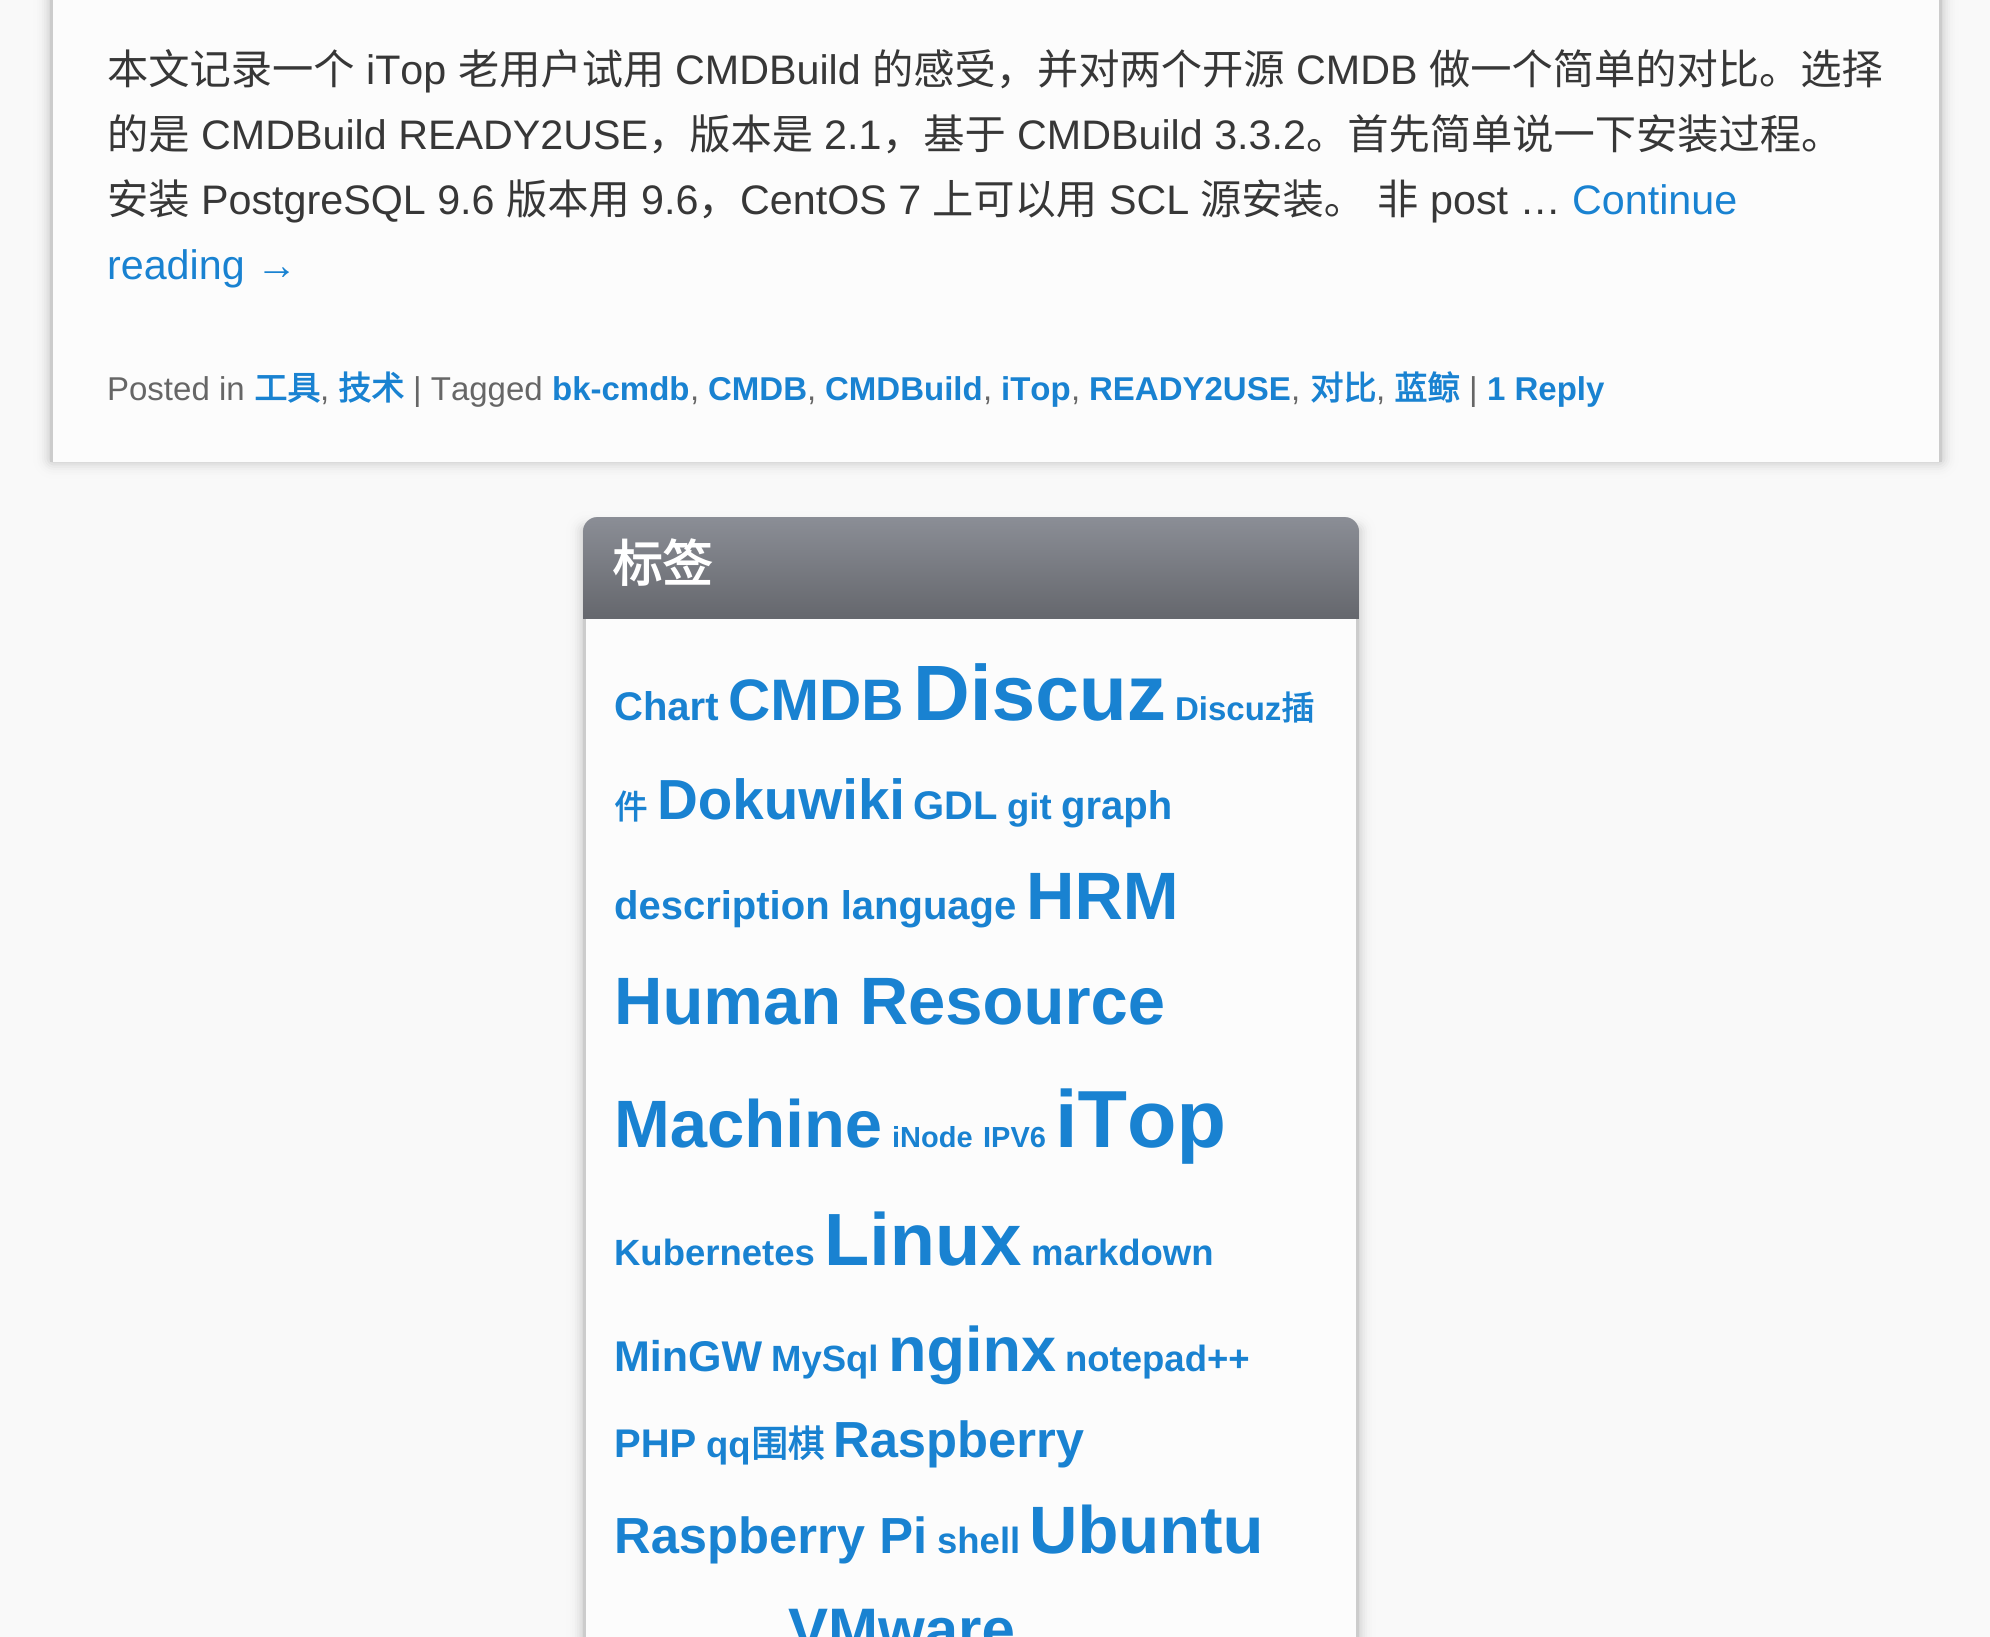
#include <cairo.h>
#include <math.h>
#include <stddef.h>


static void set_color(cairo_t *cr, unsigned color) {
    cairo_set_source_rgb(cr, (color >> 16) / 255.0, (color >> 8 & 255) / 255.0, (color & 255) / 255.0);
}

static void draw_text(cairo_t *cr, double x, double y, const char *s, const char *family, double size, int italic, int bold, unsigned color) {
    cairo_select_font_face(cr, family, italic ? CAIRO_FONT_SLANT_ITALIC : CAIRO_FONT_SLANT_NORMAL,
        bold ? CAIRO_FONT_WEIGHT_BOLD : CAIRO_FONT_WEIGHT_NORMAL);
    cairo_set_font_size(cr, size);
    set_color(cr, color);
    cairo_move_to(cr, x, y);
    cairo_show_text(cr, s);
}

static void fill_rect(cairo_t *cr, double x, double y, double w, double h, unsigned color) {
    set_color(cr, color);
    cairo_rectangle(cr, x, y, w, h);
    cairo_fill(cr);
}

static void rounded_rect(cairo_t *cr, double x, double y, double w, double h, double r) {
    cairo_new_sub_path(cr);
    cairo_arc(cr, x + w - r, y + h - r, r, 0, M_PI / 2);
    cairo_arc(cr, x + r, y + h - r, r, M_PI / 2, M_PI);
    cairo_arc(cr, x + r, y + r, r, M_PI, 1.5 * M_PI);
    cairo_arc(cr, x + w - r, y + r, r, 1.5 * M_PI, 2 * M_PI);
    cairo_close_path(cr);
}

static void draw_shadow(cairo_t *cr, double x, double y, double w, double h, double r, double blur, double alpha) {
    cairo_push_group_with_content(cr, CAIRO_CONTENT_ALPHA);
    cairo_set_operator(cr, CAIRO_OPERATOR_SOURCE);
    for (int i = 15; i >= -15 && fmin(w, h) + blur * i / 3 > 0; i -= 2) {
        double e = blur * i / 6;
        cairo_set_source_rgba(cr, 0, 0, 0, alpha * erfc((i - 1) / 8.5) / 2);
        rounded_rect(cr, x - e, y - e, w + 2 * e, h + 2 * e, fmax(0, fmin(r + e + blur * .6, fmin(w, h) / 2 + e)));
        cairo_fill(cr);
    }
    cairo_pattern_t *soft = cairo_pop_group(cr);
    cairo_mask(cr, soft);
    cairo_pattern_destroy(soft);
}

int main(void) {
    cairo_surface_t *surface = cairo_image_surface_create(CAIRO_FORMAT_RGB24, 1990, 1637);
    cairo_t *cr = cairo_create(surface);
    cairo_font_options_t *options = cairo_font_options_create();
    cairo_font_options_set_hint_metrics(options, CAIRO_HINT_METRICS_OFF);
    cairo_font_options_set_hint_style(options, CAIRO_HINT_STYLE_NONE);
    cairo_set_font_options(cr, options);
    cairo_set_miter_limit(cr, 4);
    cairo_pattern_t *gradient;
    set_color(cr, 0xF9F9F9);
    cairo_paint(cr);
    set_color(cr, 0xBBBBBB);
    draw_shadow(cr, 50, -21, 1892, 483, 0, 7, 1);
    fill_rect(cr, 53, 0, 1886, 462, 0xFCFCFC);
    fill_rect(cr, 1939, 0, 3, 462, 0xCCCCCC);
    fill_rect(cr, 50, 0, 3, 462, 0xCCCCCC);
    draw_text(cr, 107, 84, "本文记录一个", "Noto Sans CJK SC", 41.25, 0, 0, 0x373737);
    draw_text(cr, 366, 84, "iTop", "Liberation Sans", 41.25, 0, 0, 0x373737);
    draw_text(cr, 458, 84, "老用户试用", "Noto Sans CJK SC", 41.25, 0, 0, 0x373737);
    draw_text(cr, 675, 84, "CMDBuild", "Liberation Sans", 41.25, 0, 0, 0x373737);
    draw_text(cr, 872, 84, "的感受，并对两个开源", "Noto Sans CJK SC", 41.25, 0, 0, 0x373737);
    draw_text(cr, 1296, 84, "CMDB", "Liberation Sans", 41.25, 0, 0, 0x373737);
    draw_text(cr, 1429, 84, "做一个简单的对比。选择", "Noto Sans CJK SC", 41.25, 0, 0, 0x373737);
    draw_text(cr, 107, 149, "的是", "Noto Sans CJK SC", 41.25, 0, 0, 0x373737);
    draw_text(cr, 201, 149, "CMDBuild READY2USE", "Liberation Sans", 41.25, 0, 0, 0x373737);
    draw_text(cr, 648, 149, "，版本是", "Noto Sans CJK SC", 41.25, 0, 0, 0x373737);
    draw_text(cr, 824, 149, "2.1", "Liberation Sans", 41.25, 0, 0, 0x373737);
    draw_text(cr, 882, 149, "，基于", "Noto Sans CJK SC", 41.25, 0, 0, 0x373737);
    draw_text(cr, 1017, 149, "CMDBuild 3.3.2", "Liberation Sans", 41.25, 0, 0, 0x373737);
    draw_text(cr, 1306, 149, "。首先简单说一下安装过程。", "Noto Sans CJK SC", 41.25, 0, 0, 0x373737);
    draw_text(cr, 107, 214, "安装", "Noto Sans CJK SC", 41.25, 0, 0, 0x373737);
    draw_text(cr, 201, 214, "PostgreSQL 9.6", "Liberation Sans", 41.25, 0, 0, 0x373737);
    draw_text(cr, 506, 214, "版本用", "Noto Sans CJK SC", 41.25, 0, 0, 0x373737);
    draw_text(cr, 641, 214, "9.6", "Liberation Sans", 41.25, 0, 0, 0x373737);
    draw_text(cr, 698, 214, "，", "Noto Sans CJK SC", 41.25, 0, 0, 0x373737);
    draw_text(cr, 740, 214, "CentOS 7", "Liberation Sans", 41.25, 0, 0, 0x373737);
    draw_text(cr, 932, 214, "上可以用", "Noto Sans CJK SC", 41.25, 0, 0, 0x373737);
    draw_text(cr, 1109, 214, "SCL", "Liberation Sans", 41.25, 0, 0, 0x373737);
    draw_text(cr, 1200, 214, "源安装。", "Noto Sans CJK SC", 41.25, 0, 0, 0x373737);
    draw_text(cr, 1377, 214, "非", "Noto Sans CJK SC", 41.25, 0, 0, 0x373737);
    draw_text(cr, 1430, 214, "post …", "Liberation Sans", 41.25, 0, 0, 0x373737);
    draw_text(cr, 1572, 214, "Continue", "Liberation Sans", 41.25, 0, 0, 0x1982D1);
    draw_text(cr, 107, 279, "reading →", "Liberation Sans", 41.25, 0, 0, 0x1982D1);
    draw_text(cr, 107, 400, "Posted in", "Liberation Sans", 33, 0, 0, 0x666666);
    draw_text(cr, 254, 400, "工具", "Noto Sans CJK SC", 33, 0, 1, 0x1982D1);
    draw_text(cr, 320, 400, ",", "Liberation Sans", 33, 0, 0, 0x666666);
    draw_text(cr, 338, 400, "技术", "Noto Sans CJK SC", 33, 0, 1, 0x1982D1);
    draw_text(cr, 413, 400, "| Tagged", "Liberation Sans", 33, 0, 0, 0x666666);
    draw_text(cr, 552, 400, "bk-cmdb", "Liberation Sans", 33, 0, 1, 0x1982D1);
    draw_text(cr, 690, 400, ",", "Liberation Sans", 33, 0, 0, 0x666666);
    draw_text(cr, 708, 400, "CMDB", "Liberation Sans", 33, 0, 1, 0x1982D1);
    draw_text(cr, 807, 400, ",", "Liberation Sans", 33, 0, 0, 0x666666);
    draw_text(cr, 825, 400, "CMDBuild", "Liberation Sans", 33, 0, 1, 0x1982D1);
    draw_text(cr, 983, 400, ",", "Liberation Sans", 33, 0, 0, 0x666666);
    draw_text(cr, 1001, 400, "iTop", "Liberation Sans", 33, 0, 1, 0x1982D1);
    draw_text(cr, 1071, 400, ",", "Liberation Sans", 33, 0, 0, 0x666666);
    draw_text(cr, 1089, 400, "READY2USE", "Liberation Sans", 33, 0, 1, 0x1982D1);
    draw_text(cr, 1291, 400, ",", "Liberation Sans", 33, 0, 0, 0x666666);
    draw_text(cr, 1310, 400, "对比", "Noto Sans CJK SC", 33, 0, 1, 0x1982D1);
    draw_text(cr, 1376, 400, ",", "Liberation Sans", 33, 0, 0, 0x666666);
    draw_text(cr, 1394, 400, "蓝鲸", "Noto Sans CJK SC", 33, 0, 1, 0x1982D1);
    draw_text(cr, 1469, 400, "|", "Liberation Sans", 33, 0, 0, 0x666666);
    draw_text(cr, 1487, 400, "1 Reply", "Liberation Sans", 33, 0, 1, 0x1982D1);
    set_color(cr, 0xBBBBBB);
    draw_shadow(cr, 583, 528, 776, 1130, 0, 7, 1);
    fill_rect(cr, 586, 619, 770, 1018, 0xFCFCFC);
    cairo_rectangle(cr, 584.5, 529.5, 773, 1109);
    set_color(cr, 0xCCCCCC);
    cairo_set_line_width(cr, 3);
    cairo_stroke(cr);
    gradient = cairo_pattern_create_linear(971, 517, 971, 616);
    cairo_pattern_add_color_stop_rgba(gradient, 0, 0.545, 0.557, 0.588, 1);
    cairo_pattern_add_color_stop_rgba(gradient, 1, 0.4, 0.408, 0.431, 1);
    cairo_set_source(cr, gradient);
    cairo_pattern_destroy(gradient);
    cairo_new_path(cr);
    cairo_move_to(cr, 597, 517);
    cairo_line_to(cr, 1345, 517);
    cairo_curve_to(cr, 1352.5, 517, 1359, 523.5, 1359, 531);
    cairo_line_to(cr, 1359, 616);
    cairo_line_to(cr, 583, 616);
    cairo_line_to(cr, 583, 531);
    cairo_curve_to(cr, 583, 523.5, 589.5, 517, 597, 517);
    cairo_close_path(cr);
    cairo_fill(cr);
    fill_rect(cr, 583, 616, 776, 3, 0x66686E);
    draw_text(cr, 612, 582, "标签", "Noto Sans CJK SC", 50, 0, 1, 0xFFFFFF);
    draw_text(cr, 614, 720, "Chart", "Liberation Sans", 40, 0, 1, 0x1982D1);
    draw_text(cr, 728, 720, "CMDB", "Liberation Sans", 58.5, 0, 1, 0x1982D1);
    draw_text(cr, 913, 720, "Discuz", "Liberation Sans", 78.5, 0, 1, 0x1982D1);
    draw_text(cr, 1175, 720, "Discuz", "Liberation Sans", 33, 0, 1, 0x1982D1);
    draw_text(cr, 1281, 720, "插", "Noto Sans CJK SC", 33, 0, 1, 0x1982D1);
    draw_text(cr, 614, 819, "件", "Noto Sans CJK SC", 33, 0, 1, 0x1982D1);
    draw_text(cr, 657, 819, "Dokuwiki", "Liberation Sans", 56.5, 0, 1, 0x1982D1);
    draw_text(cr, 913, 819, "GDL", "Liberation Sans", 40, 0, 1, 0x1982D1);
    draw_text(cr, 1007, 819, "git", "Liberation Sans", 36.5, 0, 1, 0x1982D1);
    draw_text(cr, 1061, 819, "graph", "Liberation Sans", 40, 0, 1, 0x1982D1);
    draw_text(cr, 614, 919, "description language", "Liberation Sans", 40, 0, 1, 0x1982D1);
    draw_text(cr, 1026, 919, "HRM", "Liberation Sans", 67, 0, 1, 0x1982D1);
    draw_text(cr, 614, 1024, "Human Resource", "Liberation Sans", 67, 0, 1, 0x1982D1);
    draw_text(cr, 614, 1147, "Machine", "Liberation Sans", 67, 0, 1, 0x1982D1);
    draw_text(cr, 892, 1147, "iNode", "Liberation Sans", 29, 0, 1, 0x1982D1);
    draw_text(cr, 983, 1147, "IPV6", "Liberation Sans", 29, 0, 1, 0x1982D1);
    draw_text(cr, 1055, 1147, "iTop", "Liberation Sans", 81, 0, 1, 0x1982D1);
    draw_text(cr, 614, 1265, "Kubernetes", "Liberation Sans", 36.5, 0, 1, 0x1982D1);
    draw_text(cr, 824, 1265, "Linux", "Liberation Sans", 74, 0, 1, 0x1982D1);
    draw_text(cr, 1031, 1265, "markdown", "Liberation Sans", 36.5, 0, 1, 0x1982D1);
    draw_text(cr, 614, 1371, "MinGW", "Liberation Sans", 43, 0, 1, 0x1982D1);
    draw_text(cr, 771, 1371, "MySql", "Liberation Sans", 36.5, 0, 1, 0x1982D1);
    draw_text(cr, 888, 1371, "nginx", "Liberation Sans", 63, 0, 1, 0x1982D1);
    draw_text(cr, 1065, 1371, "notepad++", "Liberation Sans", 36.5, 0, 1, 0x1982D1);
    draw_text(cr, 614, 1457, "PHP", "Liberation Sans", 40, 0, 1, 0x1982D1);
    draw_text(cr, 706, 1457, "qq", "Liberation Sans", 36.5, 0, 1, 0x1982D1);
    draw_text(cr, 751, 1457, "围棋", "Noto Sans CJK SC", 36.5, 0, 1, 0x1982D1);
    draw_text(cr, 833, 1457, "Raspberry", "Liberation Sans", 50.75, 0, 1, 0x1982D1);
    draw_text(cr, 614, 1553, "Raspberry Pi", "Liberation Sans", 50.75, 0, 1, 0x1982D1);
    draw_text(cr, 937, 1553, "shell", "Liberation Sans", 36.5, 0, 1, 0x1982D1);
    draw_text(cr, 1029, 1553, "Ubuntu", "Liberation Sans", 67, 0, 1, 0x1982D1);
    draw_text(cr, 788, 1650, "VMware", "Liberation Sans", 60, 0, 1, 0x1982D1);
    cairo_surface_write_to_png(surface, "output.png");
    cairo_font_options_destroy(options);
    cairo_destroy(cr);
    cairo_surface_destroy(surface);
    return 0;
}
